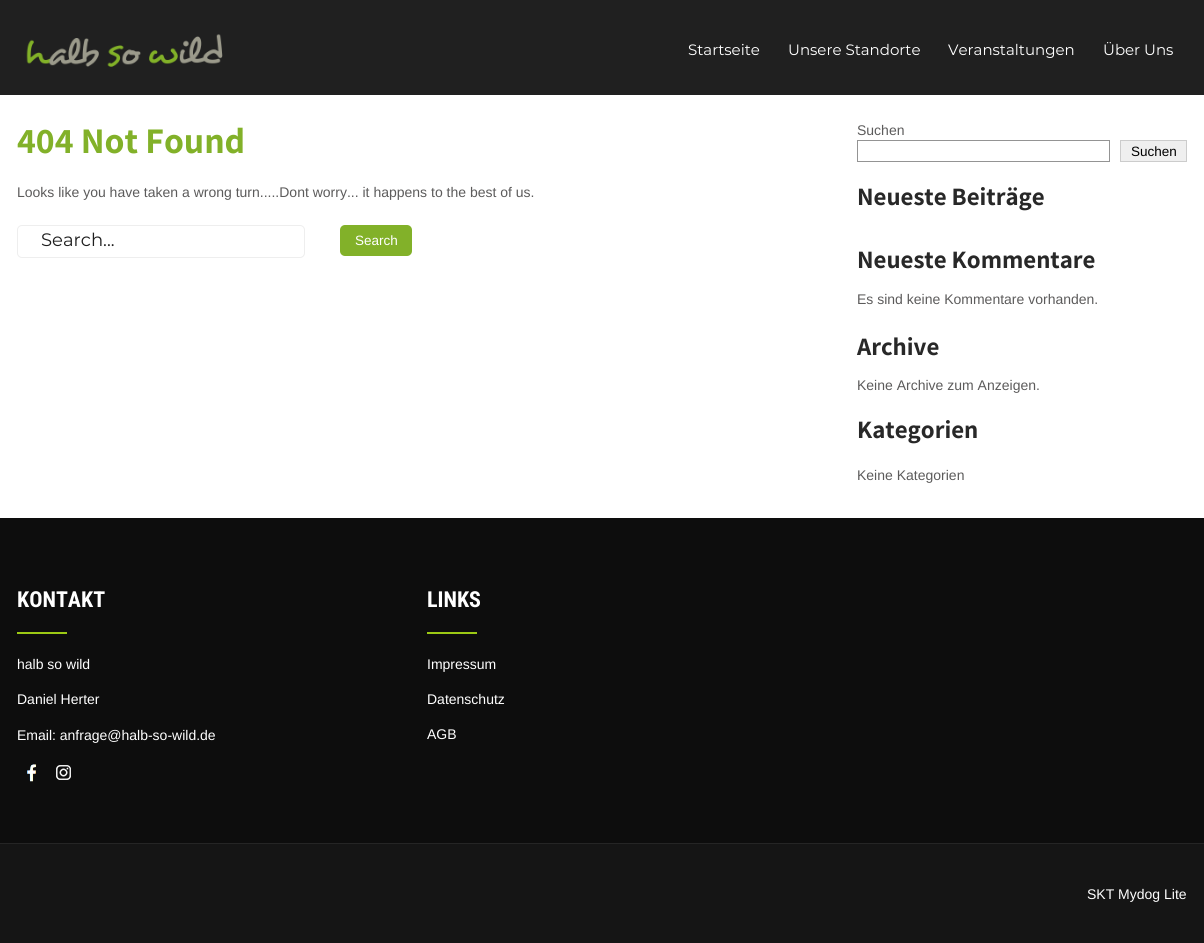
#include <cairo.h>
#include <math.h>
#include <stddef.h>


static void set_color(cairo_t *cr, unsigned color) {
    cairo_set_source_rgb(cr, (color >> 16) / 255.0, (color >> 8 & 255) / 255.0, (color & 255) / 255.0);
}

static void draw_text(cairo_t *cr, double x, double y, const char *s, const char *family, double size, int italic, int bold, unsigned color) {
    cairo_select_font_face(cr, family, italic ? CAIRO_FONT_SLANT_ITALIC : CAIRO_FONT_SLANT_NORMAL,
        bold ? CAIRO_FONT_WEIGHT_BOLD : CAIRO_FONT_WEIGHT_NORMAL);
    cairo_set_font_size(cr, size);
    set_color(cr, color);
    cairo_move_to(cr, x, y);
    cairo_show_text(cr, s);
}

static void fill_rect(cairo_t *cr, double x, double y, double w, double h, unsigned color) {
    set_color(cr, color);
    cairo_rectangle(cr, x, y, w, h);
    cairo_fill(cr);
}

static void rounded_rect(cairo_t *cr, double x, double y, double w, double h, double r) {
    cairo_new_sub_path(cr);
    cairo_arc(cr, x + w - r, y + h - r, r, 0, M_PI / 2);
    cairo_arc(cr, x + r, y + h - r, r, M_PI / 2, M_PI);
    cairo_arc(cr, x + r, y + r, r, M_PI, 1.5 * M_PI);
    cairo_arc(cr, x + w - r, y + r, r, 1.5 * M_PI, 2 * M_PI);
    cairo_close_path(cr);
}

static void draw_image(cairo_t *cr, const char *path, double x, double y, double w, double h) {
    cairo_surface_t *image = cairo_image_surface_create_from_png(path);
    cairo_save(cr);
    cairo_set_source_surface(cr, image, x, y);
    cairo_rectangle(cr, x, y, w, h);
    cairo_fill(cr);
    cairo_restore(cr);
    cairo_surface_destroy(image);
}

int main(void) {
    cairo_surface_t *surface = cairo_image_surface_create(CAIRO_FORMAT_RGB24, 1204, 943);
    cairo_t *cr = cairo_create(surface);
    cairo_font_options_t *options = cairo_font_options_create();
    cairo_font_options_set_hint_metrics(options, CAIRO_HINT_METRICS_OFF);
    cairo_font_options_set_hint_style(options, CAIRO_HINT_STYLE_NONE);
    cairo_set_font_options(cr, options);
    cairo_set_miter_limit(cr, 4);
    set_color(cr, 0xFFFFFF);
    cairo_paint(cr);
    fill_rect(cr, 0, 0, 1204, 95, 0x202020);
    draw_image(cr, "assets/img1.png", 26, 34, 197, 33);
    draw_text(cr, 688, 55, "Startseite", "Montserrat", 15, 0, 0, 0xFFFFFF);
    draw_text(cr, 788, 55, "Unsere Standorte", "Montserrat", 15, 0, 0, 0xFFFFFF);
    draw_text(cr, 948, 55, "Veranstaltungen", "Montserrat", 15, 0, 0, 0xFFFFFF);
    draw_text(cr, 1103, 55, "Über Uns", "Montserrat", 15, 0, 0, 0xFFFFFF);
    draw_text(cr, 17, 153, "404 Not Found", "Assistant", 36, 0, 1, 0x82B129);
    draw_text(cr, 17, 197, "Looks like you have taken a wrong turn.....Dont worry... it happens to the best of us.", "Liberation Sans", 14, 0, 0, 0x5C5B5B);
    rounded_rect(cr, 17.5, 225.5, 287, 32, 4.5);
    set_color(cr, 0xEEEEEE);
    cairo_set_line_width(cr, 1);
    cairo_stroke(cr);
    draw_text(cr, 41, 246, "Search...", "Montserrat", 18, 0, 0, 0x1E1E1E);
    set_color(cr, 0x82B129);
    rounded_rect(cr, 340, 225, 72, 31, 5);
    cairo_fill(cr);
    draw_text(cr, 355, 245, "Search", "Liberation Sans", 13.5, 0, 0, 0xFFFFFF);
    draw_text(cr, 857, 135, "Suchen", "Liberation Sans", 14, 0, 0, 0x5C5B5B);
    cairo_rectangle(cr, 857.5, 140.5, 252, 21);
    set_color(cr, 0x949494);
    cairo_stroke(cr);
    set_color(cr, 0xEFEFEF);
    cairo_rectangle(cr, 1120.5, 140.5, 66, 21);
    cairo_fill_preserve(cr);
    set_color(cr, 0xCCCCCC);
    cairo_stroke(cr);
    draw_text(cr, 1131, 156, "Suchen", "Liberation Sans", 13.5, 0, 0, 0x000000);
    draw_text(cr, 857, 205, "Neueste Beiträge", "Assistant", 25, 0, 1, 0x282828);
    draw_text(cr, 857, 268, "Neueste Kommentare", "Assistant", 25, 0, 1, 0x282828);
    draw_text(cr, 857, 304, "Es sind keine Kommentare vorhanden.", "Liberation Sans", 14, 0, 0, 0x5C5B5B);
    draw_text(cr, 857, 355, "Archive", "Assistant", 25, 0, 1, 0x282828);
    draw_text(cr, 857, 390, "Keine Archive zum Anzeigen.", "Liberation Sans", 14, 0, 0, 0x5C5B5B);
    draw_text(cr, 857, 438, "Kategorien", "Assistant", 25, 0, 1, 0x282828);
    draw_text(cr, 857, 480, "Keine Kategorien", "Liberation Sans", 14, 0, 0, 0x5C5B5B);
    fill_rect(cr, 0, 518, 1204, 325, 0x0D0D0D);
    draw_text(cr, 17, 607, "KONTAKT", "Roboto Condensed", 22, 0, 1, 0xFFFFFF);
    fill_rect(cr, 17, 632, 50, 2, 0x9CC914);
    draw_text(cr, 17, 669, "halb so wild", "Liberation Sans", 14, 0, 0, 0xFFFFFF);
    draw_text(cr, 17, 704, "Daniel Herter", "Liberation Sans", 14, 0, 0, 0xFFFFFF);
    draw_text(cr, 17, 740, "Email: anfrage@halb-so-wild.de", "Liberation Sans", 14, 0, 0, 0xFFFFFF);
    draw_image(cr, "assets/img2.png", 27, 764, 10, 18);
    draw_image(cr, "assets/img3.png", 56, 765, 15, 15);
    draw_text(cr, 427, 607, "LINKS", "Roboto Condensed", 22, 0, 1, 0xFFFFFF);
    fill_rect(cr, 427, 632, 50, 2, 0x9CC914);
    draw_text(cr, 427, 669, "Impressum", "Liberation Sans", 14, 0, 0, 0xFFFFFF);
    draw_text(cr, 427, 704, "Datenschutz", "Liberation Sans", 14, 0, 0, 0xFFFFFF);
    draw_text(cr, 427, 739, "AGB", "Liberation Sans", 14, 0, 0, 0xFFFFFF);
    fill_rect(cr, 0, 844, 1204, 99, 0x151515);
    fill_rect(cr, 0, 843, 1204, 1, 0x252525);
    draw_text(cr, 1087, 899, "SKT Mydog Lite", "Liberation Sans", 14, 0, 0, 0xFFFFFF);
    cairo_surface_write_to_png(surface, "output.png");
    cairo_font_options_destroy(options);
    cairo_destroy(cr);
    cairo_surface_destroy(surface);
    return 0;
}
